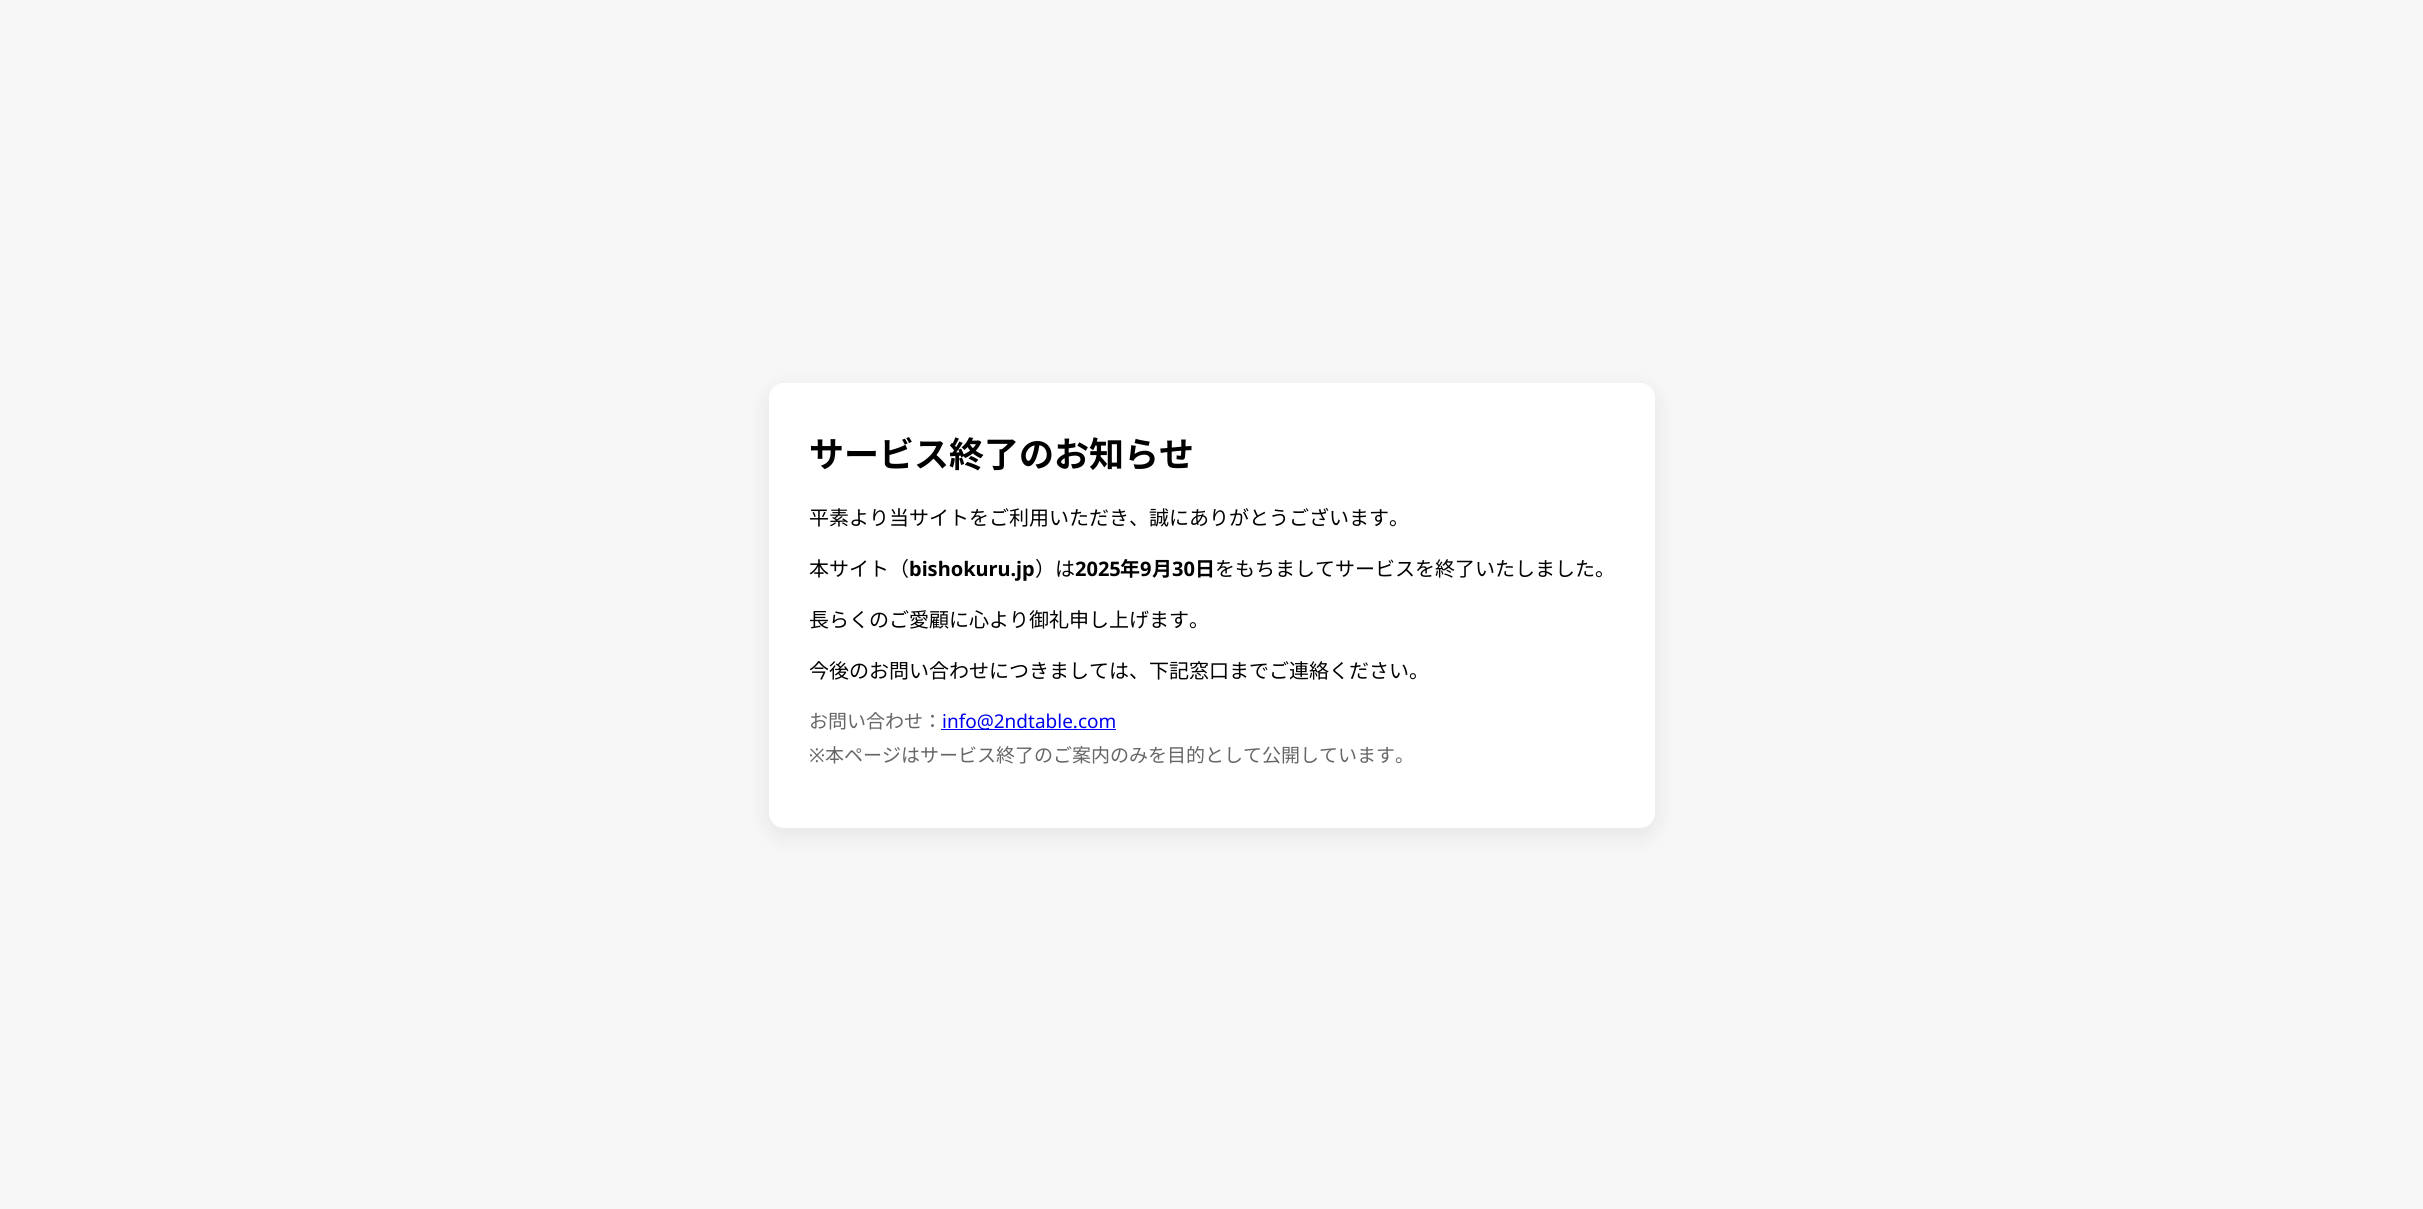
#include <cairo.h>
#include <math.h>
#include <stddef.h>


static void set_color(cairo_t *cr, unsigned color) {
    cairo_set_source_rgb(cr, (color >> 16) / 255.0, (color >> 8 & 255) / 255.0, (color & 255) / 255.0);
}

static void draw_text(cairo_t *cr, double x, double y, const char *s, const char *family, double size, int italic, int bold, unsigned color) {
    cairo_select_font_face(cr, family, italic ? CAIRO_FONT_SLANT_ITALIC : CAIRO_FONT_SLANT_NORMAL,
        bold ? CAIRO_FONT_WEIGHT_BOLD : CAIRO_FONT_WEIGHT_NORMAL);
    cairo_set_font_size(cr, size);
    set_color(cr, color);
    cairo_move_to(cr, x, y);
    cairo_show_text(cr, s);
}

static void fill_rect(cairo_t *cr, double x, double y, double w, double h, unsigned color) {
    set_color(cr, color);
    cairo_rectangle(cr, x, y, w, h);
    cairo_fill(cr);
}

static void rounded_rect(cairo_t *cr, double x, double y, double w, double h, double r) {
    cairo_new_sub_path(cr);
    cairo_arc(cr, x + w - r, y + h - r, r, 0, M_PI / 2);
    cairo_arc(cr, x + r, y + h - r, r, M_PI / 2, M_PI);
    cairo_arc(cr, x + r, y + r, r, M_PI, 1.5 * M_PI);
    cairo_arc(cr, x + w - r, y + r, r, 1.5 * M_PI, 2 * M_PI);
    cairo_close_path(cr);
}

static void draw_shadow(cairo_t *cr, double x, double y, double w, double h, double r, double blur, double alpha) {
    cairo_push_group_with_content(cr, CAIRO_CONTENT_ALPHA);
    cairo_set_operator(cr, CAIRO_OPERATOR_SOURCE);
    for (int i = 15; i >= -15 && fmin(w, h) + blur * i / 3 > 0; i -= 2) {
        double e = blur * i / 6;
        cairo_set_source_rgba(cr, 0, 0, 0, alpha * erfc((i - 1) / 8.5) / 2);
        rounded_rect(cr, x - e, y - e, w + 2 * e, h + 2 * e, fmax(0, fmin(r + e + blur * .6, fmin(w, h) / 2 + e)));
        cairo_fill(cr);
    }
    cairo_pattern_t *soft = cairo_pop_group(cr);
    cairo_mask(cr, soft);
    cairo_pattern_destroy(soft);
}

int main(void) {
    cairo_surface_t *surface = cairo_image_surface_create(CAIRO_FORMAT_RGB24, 2423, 1209);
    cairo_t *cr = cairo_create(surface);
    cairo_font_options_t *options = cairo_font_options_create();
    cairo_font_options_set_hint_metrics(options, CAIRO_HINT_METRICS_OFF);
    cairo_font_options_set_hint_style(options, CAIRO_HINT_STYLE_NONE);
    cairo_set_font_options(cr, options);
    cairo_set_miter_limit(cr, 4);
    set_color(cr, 0xF7F7F7);
    cairo_paint(cr);
    set_color(cr, 0x000000);
    draw_shadow(cr, 769, 390, 886, 445, 15, 12.5, 0.08);
    set_color(cr, 0xFFFFFF);
    rounded_rect(cr, 769, 383, 886, 445, 15);
    cairo_fill(cr);
    draw_text(cr, 809, 467, "サービス終了のお知らせ", "Noto Sans JP", 35, 0, 1, 0x000000);
    draw_text(cr, 809, 525, "平素より当サイトをご利用いただき、誠にありがとうございます。", "Noto Sans JP", 20, 0, 0, 0x000000);
    draw_text(cr, 809, 576, "本サイト（", "Noto Sans JP", 20, 0, 0, 0x000000);
    draw_text(cr, 909, 576, "bishokuru.jp", "Noto Sans", 20, 0, 1, 0x000000);
    draw_text(cr, 1035, 576, "）は", "Noto Sans JP", 20, 0, 0, 0x000000);
    draw_text(cr, 1075, 576, "2025", "Noto Sans", 20, 0, 1, 0x000000);
    draw_text(cr, 1120, 576, "年", "Noto Sans JP", 20, 0, 1, 0x000000);
    draw_text(cr, 1140, 576, "9", "Noto Sans", 20, 0, 1, 0x000000);
    draw_text(cr, 1152, 576, "月", "Noto Sans JP", 20, 0, 1, 0x000000);
    draw_text(cr, 1172, 576, "30", "Noto Sans", 20, 0, 1, 0x000000);
    draw_text(cr, 1195, 576, "日", "Noto Sans JP", 20, 0, 1, 0x000000);
    draw_text(cr, 1215, 576, "をもちましてサービスを終了いたしました。", "Noto Sans JP", 20, 0, 0, 0x000000);
    draw_text(cr, 809, 627, "長らくのご愛顧に心より御礼申し上げます。", "Noto Sans JP", 20, 0, 0, 0x000000);
    draw_text(cr, 809, 678, "今後のお問い合わせにつきましては、下記窓口までご連絡ください。", "Noto Sans JP", 20, 0, 0, 0x000000);
    draw_text(cr, 809, 728, "お問い合わせ：", "Noto Sans JP", 19, 0, 0, 0x666666);
    fill_rect(cr, 941, 729, 175, 1, 0x0000EE);
    draw_text(cr, 942, 728, "info@2ndtable.com", "Noto Sans", 19, 0, 0, 0x0000EE);
    draw_text(cr, 809, 762, "※", "Noto Sans", 19, 0, 0, 0x666666);
    draw_text(cr, 825, 762, "本ページはサービス終了のご案内のみを目的として公開しています。", "Noto Sans JP", 19, 0, 0, 0x666666);
    cairo_surface_write_to_png(surface, "output.png");
    cairo_font_options_destroy(options);
    cairo_destroy(cr);
    cairo_surface_destroy(surface);
    return 0;
}
